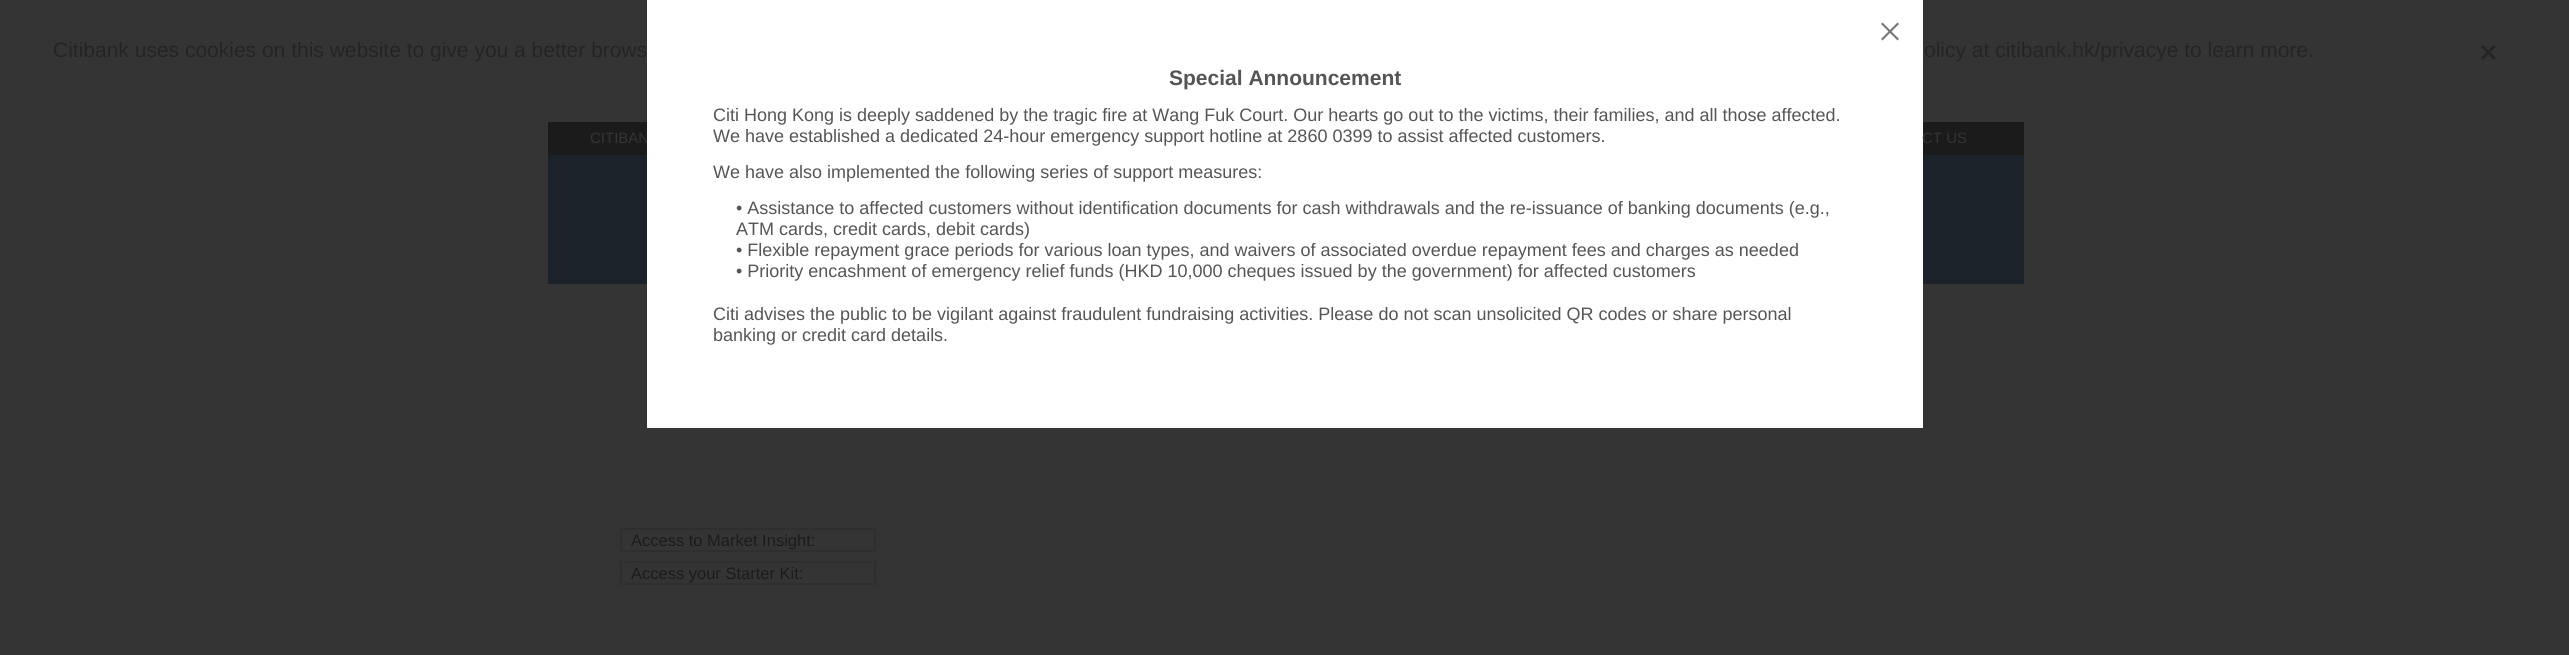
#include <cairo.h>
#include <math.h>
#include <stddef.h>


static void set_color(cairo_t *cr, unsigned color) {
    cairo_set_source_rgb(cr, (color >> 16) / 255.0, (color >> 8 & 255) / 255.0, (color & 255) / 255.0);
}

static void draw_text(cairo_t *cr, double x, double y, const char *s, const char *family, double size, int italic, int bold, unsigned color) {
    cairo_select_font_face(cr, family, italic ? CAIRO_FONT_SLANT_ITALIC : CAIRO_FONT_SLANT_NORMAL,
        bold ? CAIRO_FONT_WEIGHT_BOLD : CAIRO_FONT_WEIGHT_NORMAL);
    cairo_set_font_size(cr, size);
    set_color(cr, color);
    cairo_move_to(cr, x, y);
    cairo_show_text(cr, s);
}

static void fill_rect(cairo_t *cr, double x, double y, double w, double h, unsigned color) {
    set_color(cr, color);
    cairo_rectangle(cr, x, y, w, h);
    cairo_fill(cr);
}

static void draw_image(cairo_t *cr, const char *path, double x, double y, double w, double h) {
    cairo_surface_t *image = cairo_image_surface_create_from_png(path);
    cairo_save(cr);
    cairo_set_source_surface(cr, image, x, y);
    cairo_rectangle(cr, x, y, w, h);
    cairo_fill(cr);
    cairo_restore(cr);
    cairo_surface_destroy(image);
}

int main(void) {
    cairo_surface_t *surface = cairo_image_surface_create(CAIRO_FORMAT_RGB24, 2569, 655);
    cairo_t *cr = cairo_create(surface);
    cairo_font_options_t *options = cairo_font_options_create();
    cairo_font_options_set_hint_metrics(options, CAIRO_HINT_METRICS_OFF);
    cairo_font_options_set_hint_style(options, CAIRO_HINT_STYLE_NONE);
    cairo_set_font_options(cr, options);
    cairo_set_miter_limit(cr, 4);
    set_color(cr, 0x343434);
    cairo_paint(cr);
    draw_text(cr, 53, 57, "Citibank uses cookies on this website to give you a better brows", "Liberation Sans", 21, 0, 0, 0x242424);
    draw_text(cr, 1924, 57, "olicy at citibank.hk/privacye to learn more.", "Liberation Sans", 21, 0, 0, 0x242424);
    draw_image(cr, "assets/img1.png", 2481, 45, 15, 15);
    fill_rect(cr, 548, 122, 1476, 33, 0x1B1B1B);
    draw_text(cr, 590, 143, "CITIBAN", "Liberation Sans", 15, 0, 0, 0x343434);
    fill_rect(cr, 548, 155, 1476, 129, 0x1B2229);
    fill_rect(cr, 647, 0, 1276, 428, 0xFFFFFF);
    draw_image(cr, "assets/img2.png", 1881, 22, 18, 19);
    draw_text(cr, 1169, 85, "Special Announcement", "Liberation Sans", 21, 0, 1, 0x555555);
    draw_text(cr, 713, 121, "Citi Hong Kong is deeply saddened by the tragic fire at Wang Fuk Court. Our hearts go out to the victims, their families, and all those affected.", "Liberation Sans", 18, 0, 0, 0x555555);
    draw_text(cr, 713, 142, "We have established a dedicated 24-hour emergency support hotline at 2860 0399 to assist affected customers.", "Liberation Sans", 18, 0, 0, 0x555555);
    draw_text(cr, 713, 178, "We have also implemented the following series of support measures:", "Liberation Sans", 18, 0, 0, 0x555555);
    draw_text(cr, 736, 214, "• Assistance to affected customers without identification documents for cash withdrawals and the re-issuance of banking documents (e.g.,", "Liberation Sans", 18, 0, 0, 0x555555);
    draw_text(cr, 736, 235, "ATM cards, credit cards, debit cards)", "Liberation Sans", 18, 0, 0, 0x555555);
    draw_text(cr, 736, 256, "• Flexible repayment grace periods for various loan types, and waivers of associated overdue repayment fees and charges as needed", "Liberation Sans", 18, 0, 0, 0x555555);
    draw_text(cr, 736, 277, "• Priority encashment of emergency relief funds (HKD 10,000 cheques issued by the government) for affected customers", "Liberation Sans", 18, 0, 0, 0x555555);
    draw_text(cr, 713, 320, "Citi advises the public to be vigilant against fraudulent fundraising activities. Please do not scan unsolicited QR codes or share personal", "Liberation Sans", 18, 0, 0, 0x555555);
    draw_text(cr, 713, 341, "banking or credit card details.", "Liberation Sans", 18, 0, 0, 0x555555);
    draw_text(cr, 1922, 143, "CT US", "Liberation Sans", 15, 0, 0, 0x343434);
    cairo_rectangle(cr, 621, 529, 254, 22);
    set_color(cr, 0x2F2F2F);
    cairo_stroke(cr);
    draw_text(cr, 631, 546, "Access to Market Insight:", "Liberation Sans", 16.5, 0, 0, 0x1B1B1B);
    cairo_rectangle(cr, 621, 562, 254, 22);
    set_color(cr, 0x2F2F2F);
    cairo_stroke(cr);
    draw_text(cr, 631, 579, "Access your Starter Kit:", "Liberation Sans", 16.5, 0, 0, 0x1B1B1B);
    cairo_surface_write_to_png(surface, "output.png");
    cairo_font_options_destroy(options);
    cairo_destroy(cr);
    cairo_surface_destroy(surface);
    return 0;
}
